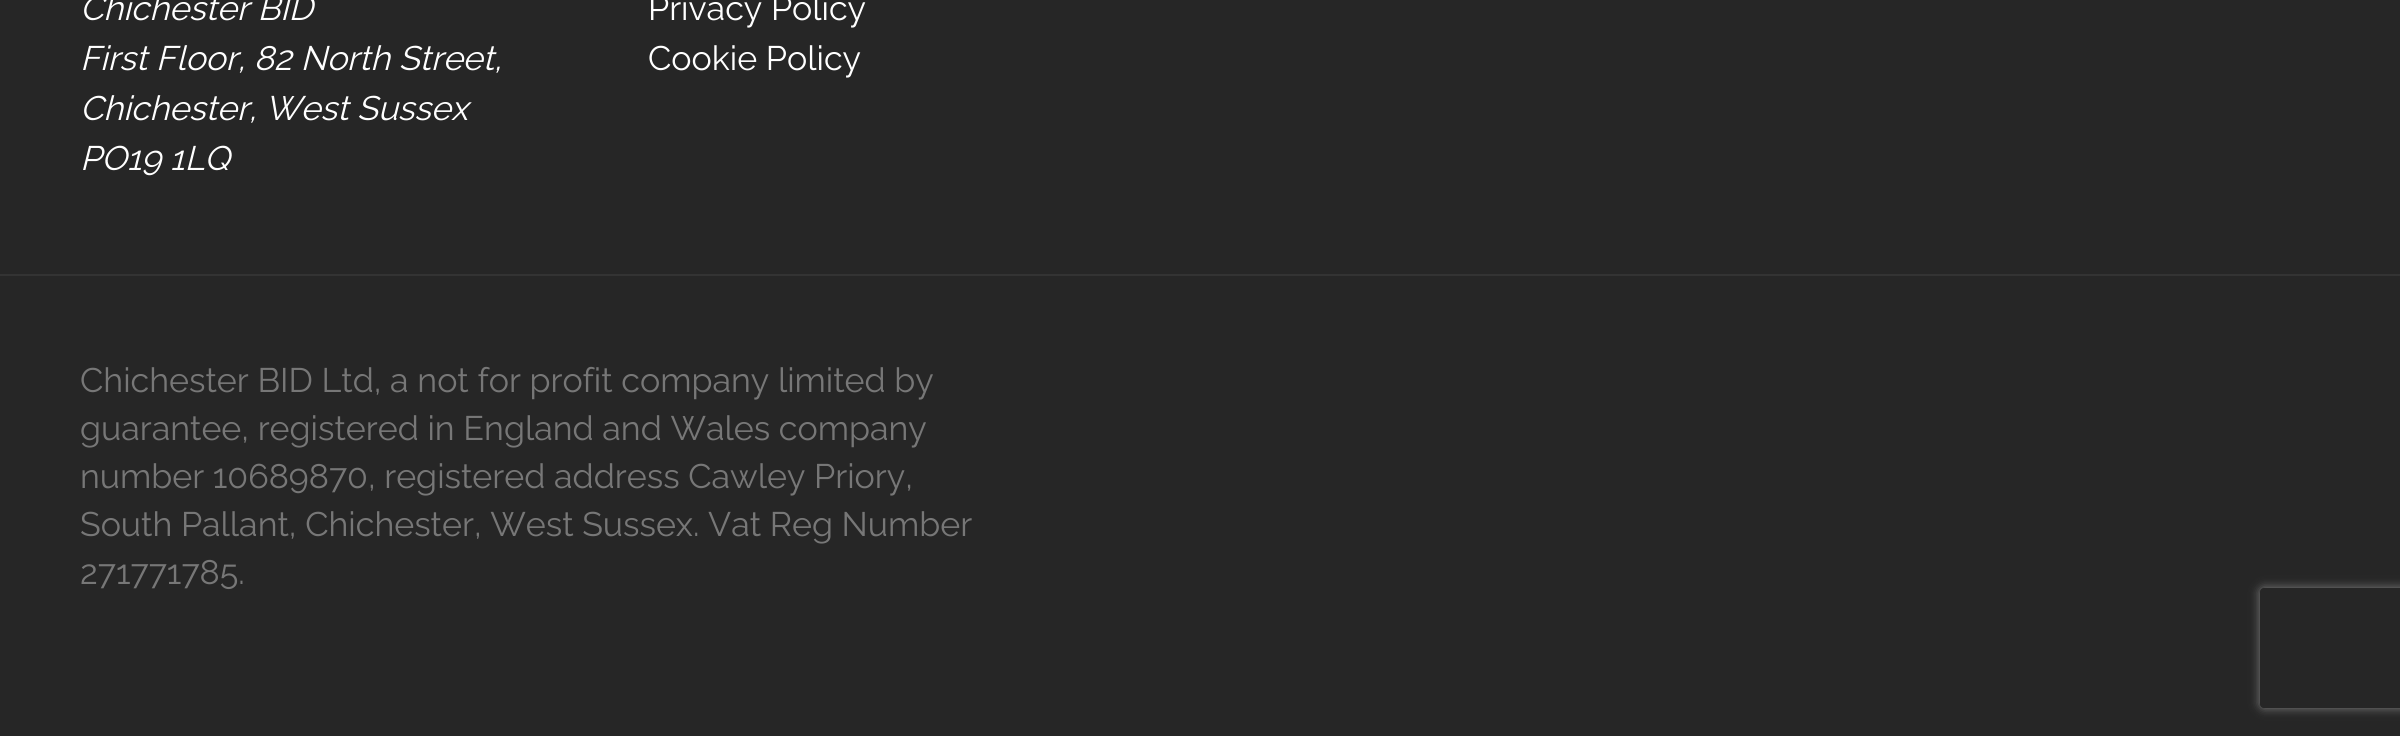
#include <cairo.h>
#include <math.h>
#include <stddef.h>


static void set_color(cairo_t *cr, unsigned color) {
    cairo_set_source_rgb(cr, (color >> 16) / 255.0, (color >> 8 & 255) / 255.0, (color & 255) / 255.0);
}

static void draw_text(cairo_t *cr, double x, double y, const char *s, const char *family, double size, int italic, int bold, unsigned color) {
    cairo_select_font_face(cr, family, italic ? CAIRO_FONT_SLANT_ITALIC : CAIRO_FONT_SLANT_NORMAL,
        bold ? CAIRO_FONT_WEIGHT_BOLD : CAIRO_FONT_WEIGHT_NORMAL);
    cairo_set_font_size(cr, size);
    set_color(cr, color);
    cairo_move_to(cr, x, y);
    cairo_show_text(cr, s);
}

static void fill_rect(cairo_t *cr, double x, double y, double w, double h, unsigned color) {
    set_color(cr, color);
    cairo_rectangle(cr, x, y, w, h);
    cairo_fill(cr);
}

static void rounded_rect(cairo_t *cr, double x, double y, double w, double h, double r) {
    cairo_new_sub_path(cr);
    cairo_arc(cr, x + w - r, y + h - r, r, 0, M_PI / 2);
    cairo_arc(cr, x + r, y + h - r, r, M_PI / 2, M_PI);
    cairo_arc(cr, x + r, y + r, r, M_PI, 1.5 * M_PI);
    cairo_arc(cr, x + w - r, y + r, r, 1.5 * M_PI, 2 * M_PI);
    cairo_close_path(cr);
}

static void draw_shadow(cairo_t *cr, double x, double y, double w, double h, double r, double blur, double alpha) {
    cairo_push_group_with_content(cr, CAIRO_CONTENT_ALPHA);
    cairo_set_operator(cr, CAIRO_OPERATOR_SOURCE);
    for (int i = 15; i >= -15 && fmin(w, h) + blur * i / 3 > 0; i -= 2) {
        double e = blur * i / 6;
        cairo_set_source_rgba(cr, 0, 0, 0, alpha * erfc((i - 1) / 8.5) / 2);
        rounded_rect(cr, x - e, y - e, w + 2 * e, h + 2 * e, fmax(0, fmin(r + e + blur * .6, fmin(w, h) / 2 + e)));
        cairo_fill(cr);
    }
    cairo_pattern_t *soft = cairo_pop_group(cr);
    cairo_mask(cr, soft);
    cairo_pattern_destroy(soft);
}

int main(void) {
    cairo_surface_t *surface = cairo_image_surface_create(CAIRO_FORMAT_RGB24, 2400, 736);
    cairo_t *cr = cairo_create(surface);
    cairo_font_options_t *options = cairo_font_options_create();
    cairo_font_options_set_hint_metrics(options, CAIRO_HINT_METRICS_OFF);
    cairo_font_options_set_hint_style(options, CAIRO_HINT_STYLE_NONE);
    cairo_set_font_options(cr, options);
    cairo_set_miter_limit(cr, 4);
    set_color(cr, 0x262626);
    cairo_paint(cr);
    draw_text(cr, 80, 20, "Chichester BID", "Raleway", 34, 1, 0, 0xFFFFFF);
    draw_text(cr, 80, 70, "First Floor, 82 North Street,", "Raleway", 34, 1, 0, 0xFFFFFF);
    draw_text(cr, 80, 120, "Chichester, West Sussex", "Raleway", 34, 1, 0, 0xFFFFFF);
    draw_text(cr, 80, 170, "PO19 1LQ", "Raleway", 34, 1, 0, 0xFFFFFF);
    draw_text(cr, 648, 20, "Privacy Policy", "Raleway", 34, 0, 0, 0xFFFFFF);
    draw_text(cr, 648, 70, "Cookie Policy", "Raleway", 34, 0, 0, 0xFFFFFF);
    fill_rect(cr, 0, 274, 2400, 2, 0x333333);
    draw_text(cr, 80, 392, "Chichester BID Ltd, a not for profit company limited by", "Raleway", 34, 0, 0, 0x777777);
    draw_text(cr, 80, 440, "guarantee, registered in England and Wales company", "Raleway", 34, 0, 0, 0x777777);
    draw_text(cr, 80, 488, "number 10689870, registered address Cawley Priory,", "Raleway", 34, 0, 0, 0x777777);
    draw_text(cr, 80, 536, "South Pallant, Chichester, West Sussex. Vat Reg Number", "Raleway", 34, 0, 0, 0x777777);
    draw_text(cr, 80, 584, "271771785.", "Raleway", 34, 0, 0, 0x777777);
    cairo_save(cr);
    cairo_set_fill_rule(cr, CAIRO_FILL_RULE_EVEN_ODD);
    cairo_new_path(cr);
    cairo_move_to(cr, 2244, 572);
    cairo_line_to(cr, 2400, 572);
    cairo_line_to(cr, 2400, 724);
    cairo_line_to(cr, 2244, 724);
    cairo_close_path(cr);
    cairo_move_to(cr, 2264, 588);
    cairo_line_to(cr, 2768, 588);
    cairo_curve_to(cr, 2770, 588, 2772, 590, 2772, 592);
    cairo_line_to(cr, 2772, 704);
    cairo_curve_to(cr, 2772, 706, 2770, 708, 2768, 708);
    cairo_line_to(cr, 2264, 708);
    cairo_curve_to(cr, 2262, 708, 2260, 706, 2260, 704);
    cairo_line_to(cr, 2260, 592);
    cairo_curve_to(cr, 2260, 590, 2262, 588, 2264, 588);
    cairo_close_path(cr);
    cairo_clip(cr);
    set_color(cr, 0x808080);
    draw_shadow(cr, 2260, 588, 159, 120, 4, 5, 1);
    cairo_restore(cr);
    cairo_surface_write_to_png(surface, "output.png");
    cairo_font_options_destroy(options);
    cairo_destroy(cr);
    cairo_surface_destroy(surface);
    return 0;
}
